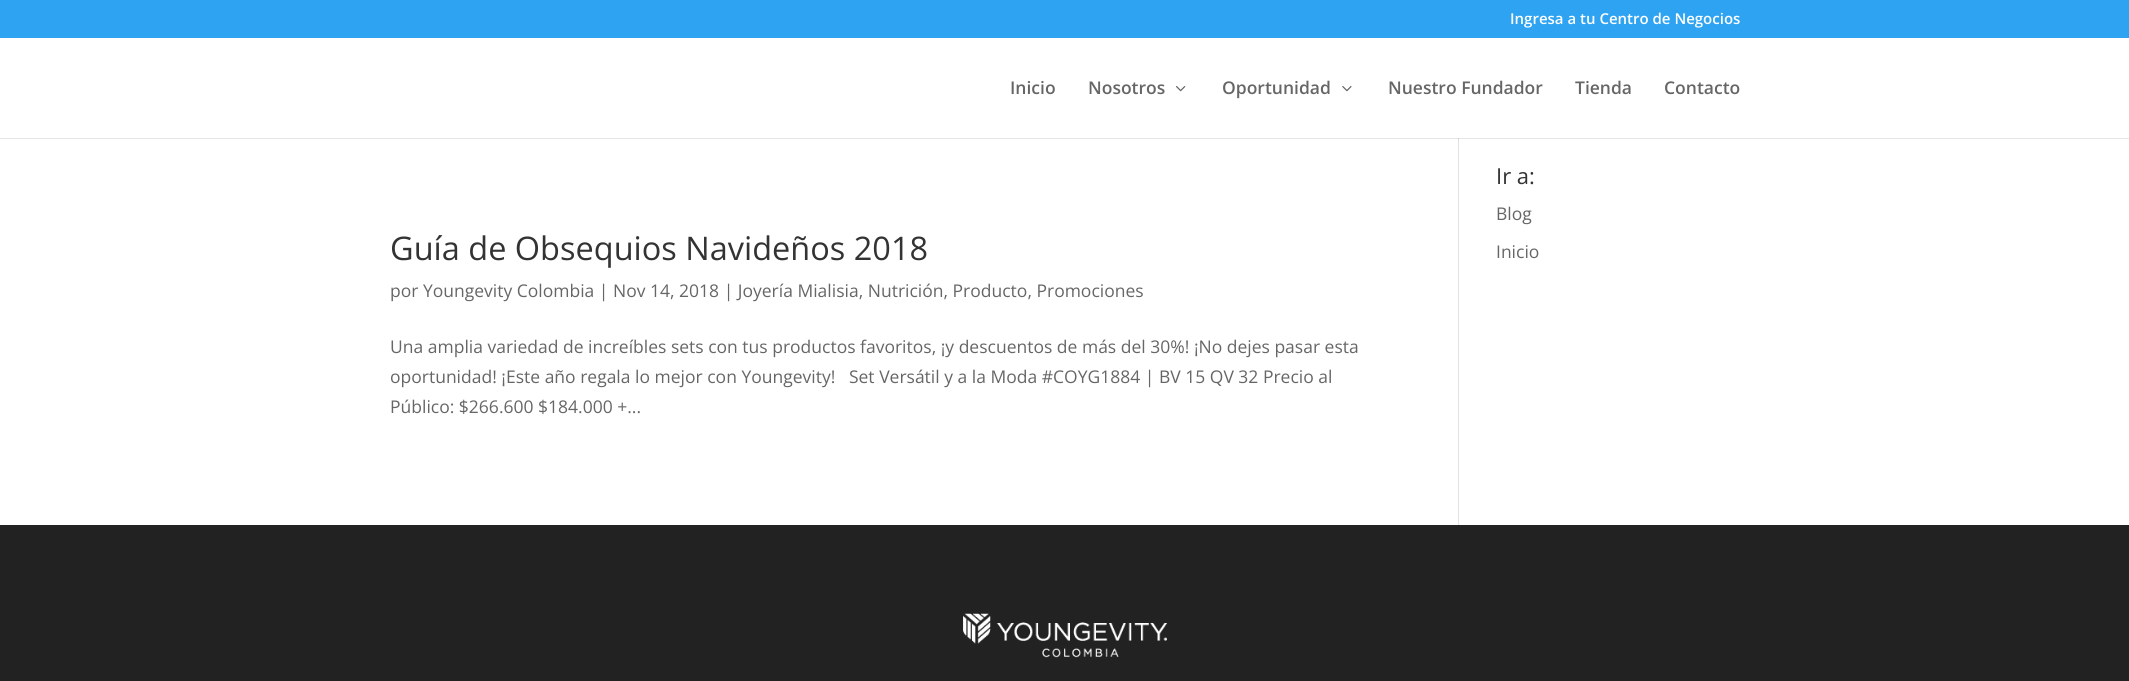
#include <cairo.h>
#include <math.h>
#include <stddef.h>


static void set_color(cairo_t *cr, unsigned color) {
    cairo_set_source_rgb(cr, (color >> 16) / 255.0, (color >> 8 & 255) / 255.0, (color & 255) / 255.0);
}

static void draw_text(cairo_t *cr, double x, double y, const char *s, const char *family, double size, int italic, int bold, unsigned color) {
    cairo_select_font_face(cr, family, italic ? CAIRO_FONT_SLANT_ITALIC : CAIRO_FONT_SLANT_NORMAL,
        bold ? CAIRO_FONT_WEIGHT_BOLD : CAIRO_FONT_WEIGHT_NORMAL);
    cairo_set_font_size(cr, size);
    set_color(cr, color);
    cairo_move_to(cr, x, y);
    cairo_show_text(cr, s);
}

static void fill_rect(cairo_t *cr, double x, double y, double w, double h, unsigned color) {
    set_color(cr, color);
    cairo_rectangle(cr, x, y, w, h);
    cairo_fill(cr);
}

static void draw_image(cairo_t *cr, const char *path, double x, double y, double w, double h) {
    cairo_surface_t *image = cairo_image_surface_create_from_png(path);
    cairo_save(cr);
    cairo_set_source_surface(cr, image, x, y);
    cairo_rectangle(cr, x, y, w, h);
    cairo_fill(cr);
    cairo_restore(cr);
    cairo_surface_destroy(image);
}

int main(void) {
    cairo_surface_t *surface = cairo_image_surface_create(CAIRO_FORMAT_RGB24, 2129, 681);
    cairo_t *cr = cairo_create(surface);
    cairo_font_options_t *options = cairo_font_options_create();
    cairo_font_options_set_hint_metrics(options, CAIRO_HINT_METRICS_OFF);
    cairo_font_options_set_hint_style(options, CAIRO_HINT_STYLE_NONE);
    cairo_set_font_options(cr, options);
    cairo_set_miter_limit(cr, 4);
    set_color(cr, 0xFFFFFF);
    cairo_paint(cr);
    fill_rect(cr, 0, 138, 2129, 1, 0xE6E6E6);
    fill_rect(cr, 0, 0, 2129, 38, 0x2EA3F2);
    draw_text(cr, 1510, 24, "Ingresa a tu Centro de Negocios", "Open Sans SemiBold", 15, 0, 0, 0xFFFFFF);
    draw_text(cr, 1010, 94, "Inicio", "Open Sans SemiBold", 17.5, 0, 0, 0x666666);
    draw_text(cr, 1088, 94, "Nosotros", "Open Sans SemiBold", 17.5, 0, 0, 0x666666);
    draw_image(cr, "assets/img1.png", 1176, 86, 10, 6);
    draw_text(cr, 1222, 94, "Oportunidad", "Open Sans SemiBold", 17.5, 0, 0, 0x666666);
    draw_image(cr, "assets/img2.png", 1342, 86, 10, 6);
    draw_text(cr, 1388, 94, "Nuestro Fundador", "Open Sans SemiBold", 17.5, 0, 0, 0x666666);
    draw_text(cr, 1575, 94, "Tienda", "Open Sans SemiBold", 17.5, 0, 0, 0x666666);
    draw_text(cr, 1664, 94, "Contacto", "Open Sans SemiBold", 17.5, 0, 0, 0x666666);
    fill_rect(cr, 1458, 139, 1, 386, 0xE2E2E2);
    fill_rect(cr, 1458, 138, 1, 1, 0xCBCBCB);
    draw_text(cr, 1496, 184, "Ir a:", "Open Sans", 22, 0, 0, 0x333333);
    draw_text(cr, 1496, 220, "Blog", "Open Sans", 17.5, 0, 0, 0x666666);
    draw_text(cr, 1496, 258, "Inicio", "Open Sans", 17.5, 0, 0, 0x666666);
    draw_text(cr, 390, 260, "Guía de Obsequios Navideños 2018", "Open Sans", 32.5, 0, 0, 0x333333);
    draw_text(cr, 390, 297, "por Youngevity Colombia | Nov 14, 2018 | Joyería Mialisia, Nutrición, Producto, Promociones", "Open Sans", 17.5, 0, 0, 0x666666);
    draw_text(cr, 390, 353, "Una amplia variedad de increíbles sets con tus productos favoritos, ¡y descuentos de más del 30%! ¡No dejes pasar esta", "Open Sans", 17.5, 0, 0, 0x666666);
    draw_text(cr, 390, 383, "oportunidad! ¡Este año regala lo mejor con Youngevity!   Set Versátil y a la Moda #COYG1884 | BV 15 QV 32 Precio al", "Open Sans", 17.5, 0, 0, 0x666666);
    draw_text(cr, 390, 413, "Público: $266.600 $184.000 +...", "Open Sans", 17.5, 0, 0, 0x666666);
    fill_rect(cr, 0, 525, 2129, 156, 0x222222);
    draw_image(cr, "assets/img3.png", 963, 613, 204, 45);
    cairo_surface_write_to_png(surface, "output.png");
    cairo_font_options_destroy(options);
    cairo_destroy(cr);
    cairo_surface_destroy(surface);
    return 0;
}
